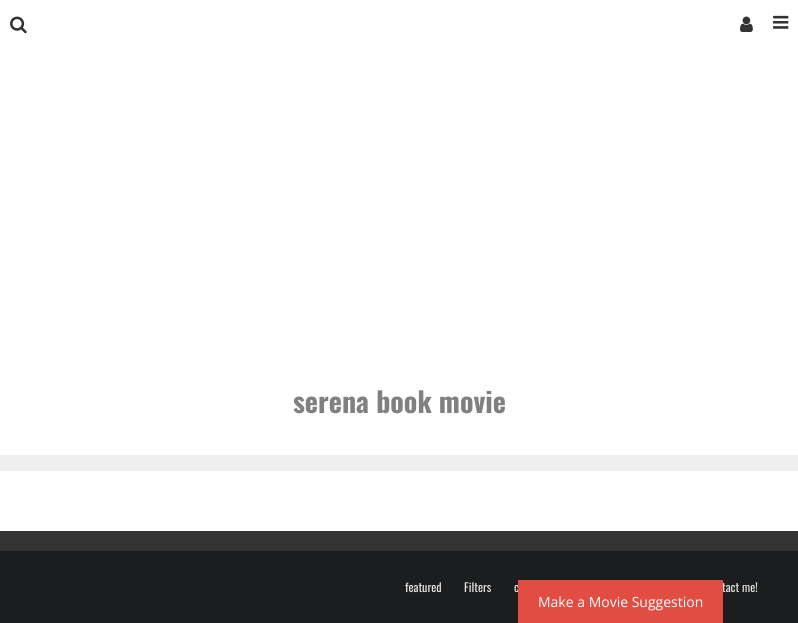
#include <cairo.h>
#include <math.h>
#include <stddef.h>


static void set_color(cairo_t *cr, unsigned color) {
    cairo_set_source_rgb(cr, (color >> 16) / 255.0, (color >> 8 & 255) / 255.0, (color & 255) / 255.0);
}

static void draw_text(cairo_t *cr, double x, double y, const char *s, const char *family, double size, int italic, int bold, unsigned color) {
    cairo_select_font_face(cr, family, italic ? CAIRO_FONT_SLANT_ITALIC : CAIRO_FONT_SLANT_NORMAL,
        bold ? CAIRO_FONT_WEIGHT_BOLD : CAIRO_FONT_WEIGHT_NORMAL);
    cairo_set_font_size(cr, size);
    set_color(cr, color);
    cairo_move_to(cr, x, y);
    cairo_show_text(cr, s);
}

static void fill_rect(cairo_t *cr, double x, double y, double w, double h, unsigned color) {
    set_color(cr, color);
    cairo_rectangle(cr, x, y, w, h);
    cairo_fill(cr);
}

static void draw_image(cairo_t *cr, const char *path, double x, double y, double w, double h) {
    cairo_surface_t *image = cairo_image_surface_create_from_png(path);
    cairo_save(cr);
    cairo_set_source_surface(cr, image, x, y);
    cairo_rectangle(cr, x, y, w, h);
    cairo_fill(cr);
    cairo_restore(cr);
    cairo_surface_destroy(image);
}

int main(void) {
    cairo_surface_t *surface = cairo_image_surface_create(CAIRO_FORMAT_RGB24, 798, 623);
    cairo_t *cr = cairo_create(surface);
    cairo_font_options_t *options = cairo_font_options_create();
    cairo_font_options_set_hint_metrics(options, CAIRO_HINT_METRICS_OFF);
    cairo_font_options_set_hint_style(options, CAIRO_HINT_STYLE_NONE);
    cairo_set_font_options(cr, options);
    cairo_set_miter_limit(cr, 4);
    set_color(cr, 0xFFFFFF);
    cairo_paint(cr);
    draw_image(cr, "assets/img1.png", 10, 16, 17, 18);
    draw_image(cr, "assets/img2.png", 740, 16, 13, 16);
    draw_image(cr, "assets/img3.png", 773, 15, 16, 14);
    draw_text(cr, 293, 413, "serena book movie", "Oswald", 28, 0, 1, 0x808080);
    fill_rect(cr, 0, 455, 798, 16, 0xEEEEEE);
    fill_rect(cr, 0, 551, 798, 72, 0x1C1D1E);
    fill_rect(cr, 0, 531, 798, 20, 0x333333);
    draw_text(cr, 405, 592, "featured", "Oswald", 12, 0, 0, 0xE5E5E5);
    draw_text(cr, 464, 592, "Filters", "Oswald", 12, 0, 0, 0xE5E5E5);
    draw_text(cr, 514, 592, "c", "Oswald", 12, 0, 0, 0xE5E5E5);
    draw_text(cr, 722, 592, "tact me!", "Oswald", 12, 0, 0, 0xE5E5E5);
    fill_rect(cr, 518, 580, 205, 43, 0xE14D43);
    draw_text(cr, 538, 607, "Make a Movie Suggestion", "Open Sans", 14, 0, 0, 0xFFFFFF);
    cairo_surface_write_to_png(surface, "output.png");
    cairo_font_options_destroy(options);
    cairo_destroy(cr);
    cairo_surface_destroy(surface);
    return 0;
}
